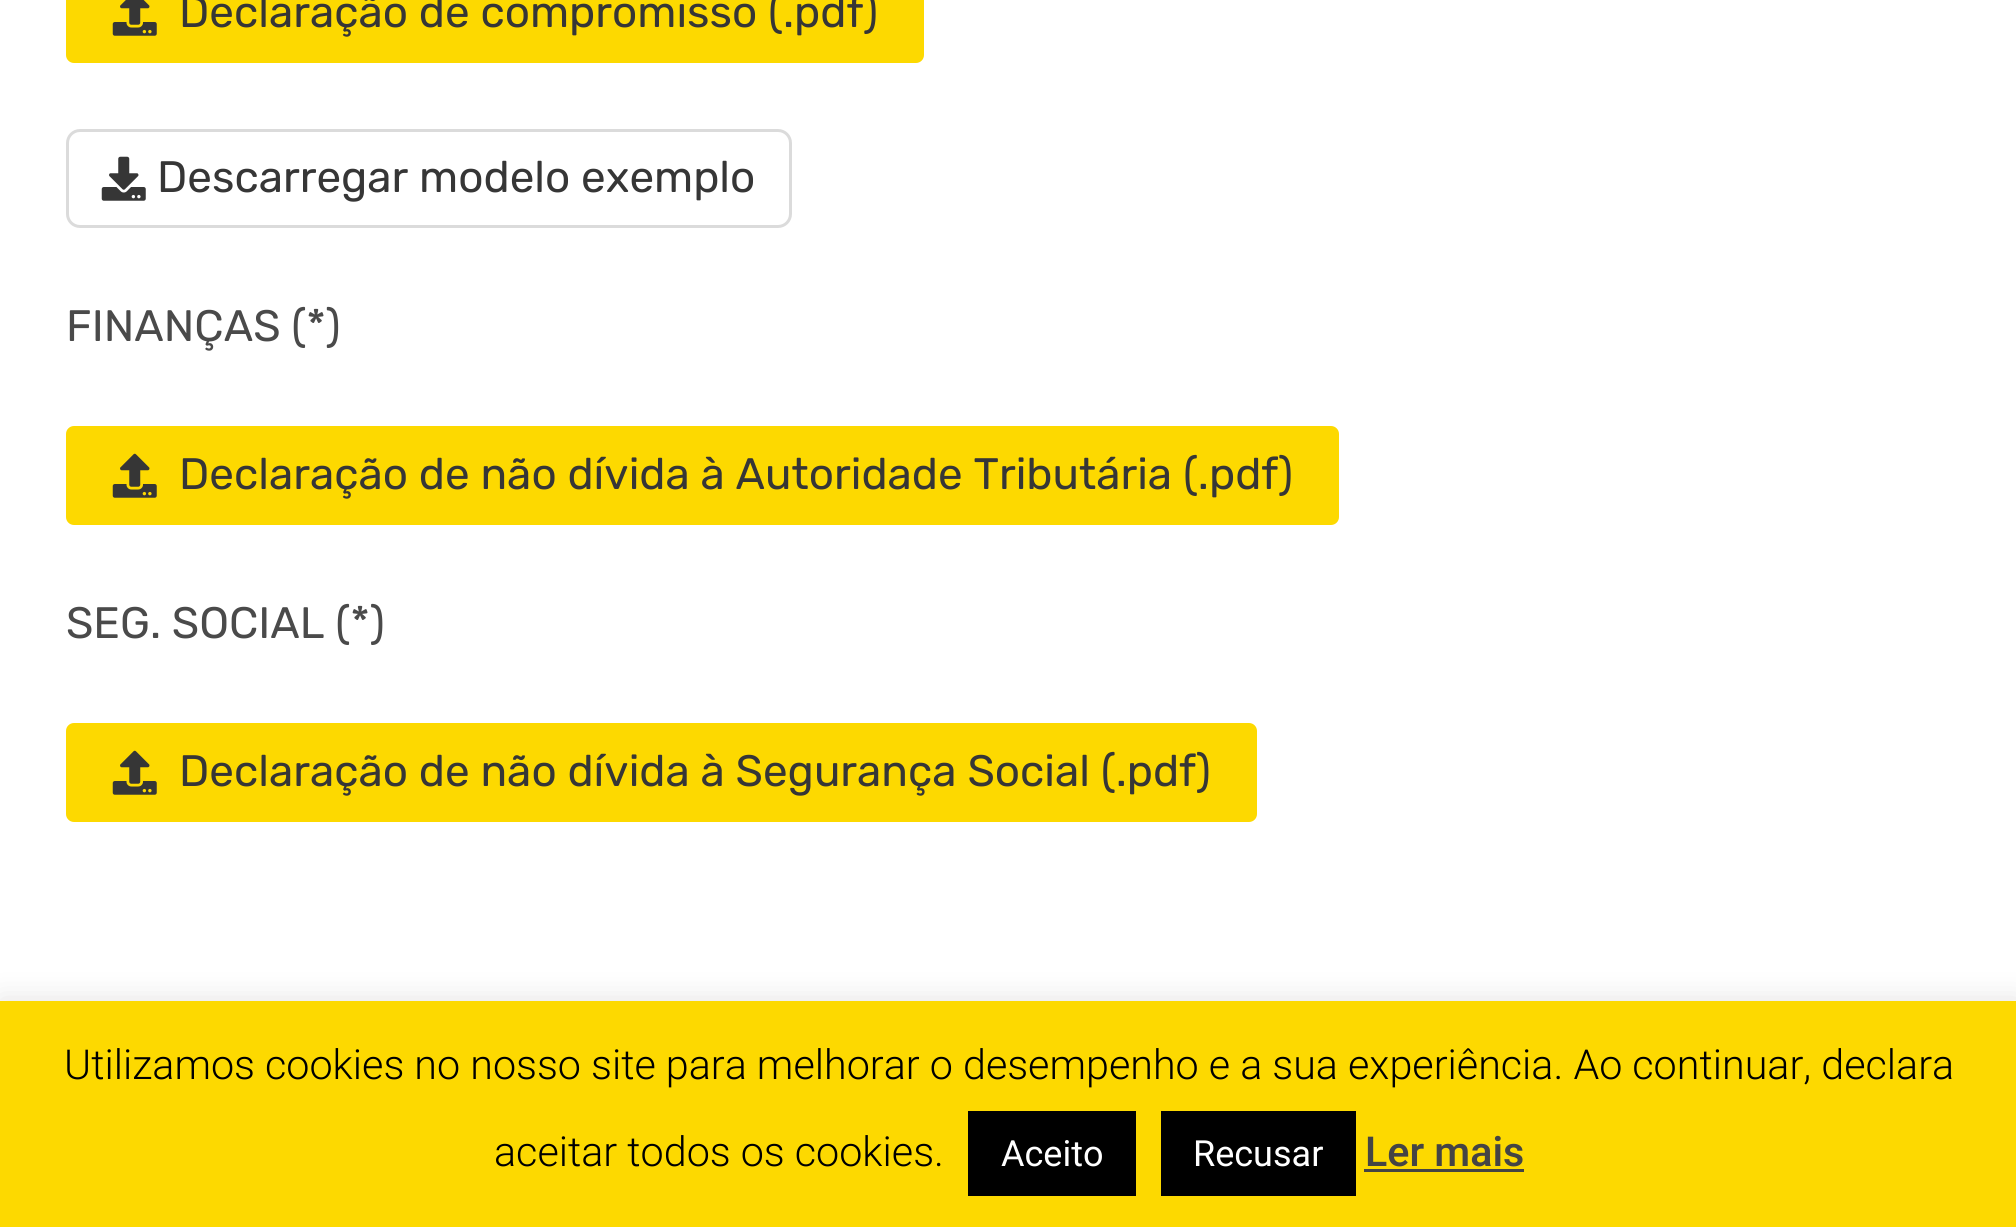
#include <cairo.h>
#include <math.h>
#include <stddef.h>


static void set_color(cairo_t *cr, unsigned color) {
    cairo_set_source_rgb(cr, (color >> 16) / 255.0, (color >> 8 & 255) / 255.0, (color & 255) / 255.0);
}

static void draw_text(cairo_t *cr, double x, double y, const char *s, const char *family, double size, int italic, int bold, unsigned color) {
    cairo_select_font_face(cr, family, italic ? CAIRO_FONT_SLANT_ITALIC : CAIRO_FONT_SLANT_NORMAL,
        bold ? CAIRO_FONT_WEIGHT_BOLD : CAIRO_FONT_WEIGHT_NORMAL);
    cairo_set_font_size(cr, size);
    set_color(cr, color);
    cairo_move_to(cr, x, y);
    cairo_show_text(cr, s);
}

static void fill_rect(cairo_t *cr, double x, double y, double w, double h, unsigned color) {
    set_color(cr, color);
    cairo_rectangle(cr, x, y, w, h);
    cairo_fill(cr);
}

static void rounded_rect(cairo_t *cr, double x, double y, double w, double h, double r) {
    cairo_new_sub_path(cr);
    cairo_arc(cr, x + w - r, y + h - r, r, 0, M_PI / 2);
    cairo_arc(cr, x + r, y + h - r, r, M_PI / 2, M_PI);
    cairo_arc(cr, x + r, y + r, r, M_PI, 1.5 * M_PI);
    cairo_arc(cr, x + w - r, y + r, r, 1.5 * M_PI, 2 * M_PI);
    cairo_close_path(cr);
}

static void draw_shadow(cairo_t *cr, double x, double y, double w, double h, double r, double blur, double alpha) {
    cairo_push_group_with_content(cr, CAIRO_CONTENT_ALPHA);
    cairo_set_operator(cr, CAIRO_OPERATOR_SOURCE);
    for (int i = 15; i >= -15 && fmin(w, h) + blur * i / 3 > 0; i -= 2) {
        double e = blur * i / 6;
        cairo_set_source_rgba(cr, 0, 0, 0, alpha * erfc((i - 1) / 8.5) / 2);
        rounded_rect(cr, x - e, y - e, w + 2 * e, h + 2 * e, fmax(0, fmin(r + e + blur * .6, fmin(w, h) / 2 + e)));
        cairo_fill(cr);
    }
    cairo_pattern_t *soft = cairo_pop_group(cr);
    cairo_mask(cr, soft);
    cairo_pattern_destroy(soft);
}

static void draw_image(cairo_t *cr, const char *path, double x, double y, double w, double h) {
    cairo_surface_t *image = cairo_image_surface_create_from_png(path);
    cairo_save(cr);
    cairo_set_source_surface(cr, image, x, y);
    cairo_rectangle(cr, x, y, w, h);
    cairo_fill(cr);
    cairo_restore(cr);
    cairo_surface_destroy(image);
}

int main(void) {
    cairo_surface_t *surface = cairo_image_surface_create(CAIRO_FORMAT_RGB24, 2016, 1227);
    cairo_t *cr = cairo_create(surface);
    cairo_font_options_t *options = cairo_font_options_create();
    cairo_font_options_set_hint_metrics(options, CAIRO_HINT_METRICS_OFF);
    cairo_font_options_set_hint_style(options, CAIRO_HINT_STYLE_NONE);
    cairo_set_font_options(cr, options);
    cairo_set_miter_limit(cr, 4);
    set_color(cr, 0xFFFFFF);
    cairo_paint(cr);
    set_color(cr, 0xFDD900);
    rounded_rect(cr, 66, -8, 858, 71, 8);
    cairo_fill(cr);
    draw_image(cr, "assets/img1.png", 112, 0, 45, 36);
    draw_text(cr, 179, 27, "Declaração de compromisso (.pdf)", "Rubik", 44, 0, 0, 0x363636);
    rounded_rect(cr, 67.5, 130.5, 723, 96, 12.5);
    set_color(cr, 0xDBDBDB);
    cairo_set_line_width(cr, 3);
    cairo_stroke(cr);
    draw_image(cr, "assets/img2.png", 101, 156, 45, 45);
    draw_text(cr, 157, 192, "Descarregar modelo exemplo", "Rubik", 44, 0, 0, 0x363636);
    draw_text(cr, 66, 341, "FINANÇAS (*)", "Rubik", 44, 0, 0, 0x4A4A4A);
    set_color(cr, 0xFDD900);
    rounded_rect(cr, 66, 426, 1273, 99, 8);
    cairo_fill(cr);
    draw_image(cr, "assets/img3.png", 112, 453, 45, 45);
    draw_text(cr, 179, 489, "Declaração de não dívida à Autoridade Tributária (.pdf)", "Rubik", 44, 0, 0, 0x363636);
    draw_text(cr, 66, 638, "SEG. SOCIAL (*)", "Rubik", 44, 0, 0, 0x4A4A4A);
    set_color(cr, 0xFDD900);
    rounded_rect(cr, 66, 723, 1191, 99, 8);
    cairo_fill(cr);
    draw_image(cr, "assets/img3.png", 112, 750, 45, 45);
    draw_text(cr, 179, 786, "Declaração de não dívida à Segurança Social (.pdf)", "Rubik", 44, 0, 0, 0x363636);
    set_color(cr, 0xACABAB);
    draw_shadow(cr, 0, 998, 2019, 229, 0, 14, 0.3);
    fill_rect(cr, 0, 1001, 2016, 226, 0xFDD900);
    draw_text(cr, 64, 1079, "Utilizamos cookies no nosso site para melhorar o desempenho e a sua experiência. Ao continuar, declara", "Roboto Light", 41.25, 0, 0, 0x000000);
    draw_text(cr, 494, 1166, "aceitar todos os cookies.", "Roboto Light", 41.25, 0, 0, 0x000000);
    fill_rect(cr, 968, 1111, 168, 85, 0x000000);
    draw_text(cr, 1001, 1166, "Aceito", "Roboto", 36, 0, 0, 0xFFFFFF);
    fill_rect(cr, 1161, 1111, 195, 85, 0x000000);
    draw_text(cr, 1193, 1166, "Recusar", "Roboto", 36, 0, 0, 0xFFFFFF);
    draw_text(cr, 1365, 1166, "Ler mais", "Roboto Medium", 41.25, 0, 0, 0x444444);
    fill_rect(cr, 1364, 1169, 160, 3, 0x444444);
    cairo_surface_write_to_png(surface, "output.png");
    cairo_font_options_destroy(options);
    cairo_destroy(cr);
    cairo_surface_destroy(surface);
    return 0;
}
